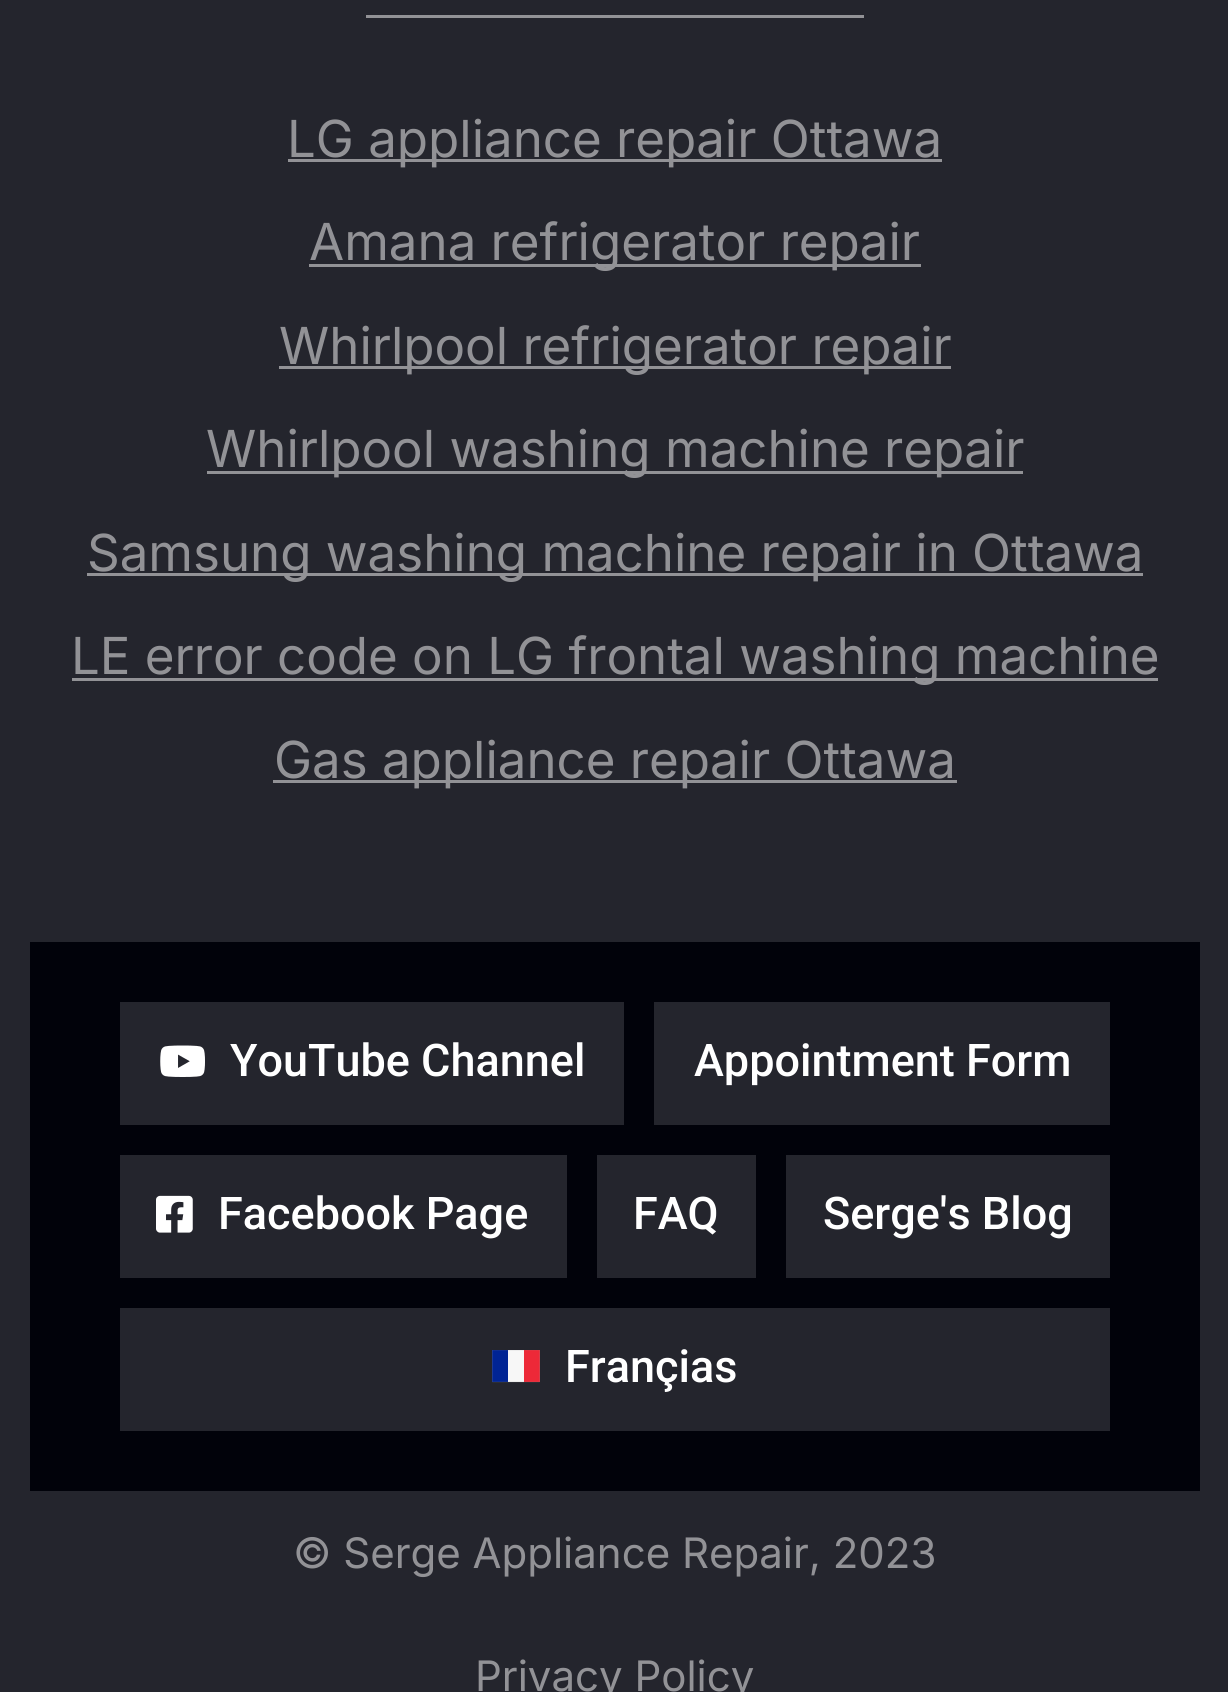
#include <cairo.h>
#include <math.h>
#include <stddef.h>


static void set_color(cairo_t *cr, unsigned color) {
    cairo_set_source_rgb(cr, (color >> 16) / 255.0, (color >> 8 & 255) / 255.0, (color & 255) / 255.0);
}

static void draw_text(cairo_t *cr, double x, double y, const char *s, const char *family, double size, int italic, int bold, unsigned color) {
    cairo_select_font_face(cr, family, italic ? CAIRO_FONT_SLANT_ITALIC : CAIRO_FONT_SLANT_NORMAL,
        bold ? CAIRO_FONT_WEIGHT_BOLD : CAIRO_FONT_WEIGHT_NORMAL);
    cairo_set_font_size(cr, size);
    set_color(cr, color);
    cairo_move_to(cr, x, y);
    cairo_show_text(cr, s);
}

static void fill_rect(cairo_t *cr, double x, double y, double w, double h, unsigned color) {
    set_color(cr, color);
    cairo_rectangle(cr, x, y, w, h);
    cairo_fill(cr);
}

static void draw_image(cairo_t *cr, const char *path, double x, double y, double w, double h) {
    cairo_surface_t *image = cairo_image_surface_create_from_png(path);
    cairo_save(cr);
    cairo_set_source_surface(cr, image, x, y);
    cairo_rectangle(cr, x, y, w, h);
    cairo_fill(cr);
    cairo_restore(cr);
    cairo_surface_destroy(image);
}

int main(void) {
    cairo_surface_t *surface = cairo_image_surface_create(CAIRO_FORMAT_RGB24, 1228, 1692);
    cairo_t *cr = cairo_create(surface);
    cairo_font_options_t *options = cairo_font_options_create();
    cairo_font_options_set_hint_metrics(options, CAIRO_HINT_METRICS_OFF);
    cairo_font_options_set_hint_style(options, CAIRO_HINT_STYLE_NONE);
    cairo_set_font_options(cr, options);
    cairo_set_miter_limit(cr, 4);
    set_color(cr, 0x24252D);
    cairo_paint(cr);
    fill_rect(cr, 366, 15, 498, 3, 0x929296);
    fill_rect(cr, 288, 159, 654, 3, 0x929296);
    draw_text(cr, 287, 157, "LG appliance repair Ottawa", "Inter", 51, 0, 0, 0x929296);
    fill_rect(cr, 309, 264, 612, 3, 0x929296);
    draw_text(cr, 309, 260, "Amana refrigerator repair", "Inter", 51, 0, 0, 0x929296);
    fill_rect(cr, 279, 366, 672, 3, 0x929296);
    draw_text(cr, 279, 364, "Whirlpool refrigerator repair", "Inter", 51, 0, 0, 0x929296);
    fill_rect(cr, 207, 471, 816, 3, 0x929296);
    draw_text(cr, 206, 467, "Whirlpool washing machine repair", "Inter", 51, 0, 0, 0x929296);
    fill_rect(cr, 87, 573, 1056, 3, 0x929296);
    draw_text(cr, 87, 571, "Samsung washing machine repair in Ottawa", "Inter", 51, 0, 0, 0x929296);
    fill_rect(cr, 72, 678, 1086, 3, 0x929296);
    draw_text(cr, 71, 674, "LE error code on LG frontal washing machine", "Inter", 51, 0, 0, 0x929296);
    fill_rect(cr, 273, 780, 684, 3, 0x929296);
    draw_text(cr, 274, 778, "Gas appliance repair Ottawa", "Inter", 51, 0, 0, 0x929296);
    fill_rect(cr, 30, 942, 1170, 549, 0x01020A);
    fill_rect(cr, 120, 1002, 504, 123, 0x24252D);
    draw_image(cr, "assets/img1.png", 160, 1045, 45, 32);
    draw_text(cr, 230, 1076, "YouTube Channel", "Roboto Medium", 45, 0, 0, 0xFFFFFF);
    fill_rect(cr, 654, 1002, 456, 123, 0x24252D);
    draw_text(cr, 694, 1076, "Appointment Form", "Roboto Medium", 45, 0, 0, 0xFFFFFF);
    fill_rect(cr, 120, 1155, 447, 123, 0x24252D);
    draw_image(cr, "assets/img2.png", 156, 1195, 37, 38);
    draw_text(cr, 218, 1229, "Facebook Page", "Roboto Medium", 45, 0, 0, 0xFFFFFF);
    fill_rect(cr, 597, 1155, 159, 123, 0x24252D);
    draw_text(cr, 633, 1229, "FAQ", "Roboto Medium", 45, 0, 0, 0xFFFFFF);
    fill_rect(cr, 786, 1155, 324, 123, 0x24252D);
    draw_text(cr, 823, 1229, "Serge's Blog", "Roboto Medium", 45, 0, 0, 0xFFFFFF);
    fill_rect(cr, 120, 1308, 990, 123, 0x24252D);
    fill_rect(cr, 492, 1350, 16, 32, 0x002494);
    fill_rect(cr, 508, 1350, 16, 32, 0xF7F7F7);
    fill_rect(cr, 524, 1350, 16, 32, 0xED2938);
    cairo_save(cr);
    cairo_rectangle(cr, 492, 1350, 48, 33);
    cairo_clip(cr);
    cairo_new_path(cr);
    cairo_move_to(cr, 492.5, 1350);
    cairo_line_to(cr, 539.5, 1350);
    cairo_line_to(cr, 539.5, 1382);
    cairo_line_to(cr, 492.5, 1382);
    cairo_close_path(cr);
    set_color(cr, 0x8C8C8C);
    cairo_set_line_width(cr, 0.2);
    cairo_stroke(cr);
    cairo_restore(cr);
    draw_text(cr, 565, 1382, "Françias", "Roboto Medium", 45, 0, 0, 0xFFFFFF);
    draw_text(cr, 293, 1568, "© Serge Appliance Repair, 2023", "Inter", 42, 0, 0, 0x929296);
    draw_text(cr, 475, 1691, "Privacy Policy", "Inter", 42, 0, 0, 0x929296);
    cairo_surface_write_to_png(surface, "output.png");
    cairo_font_options_destroy(options);
    cairo_destroy(cr);
    cairo_surface_destroy(surface);
    return 0;
}
